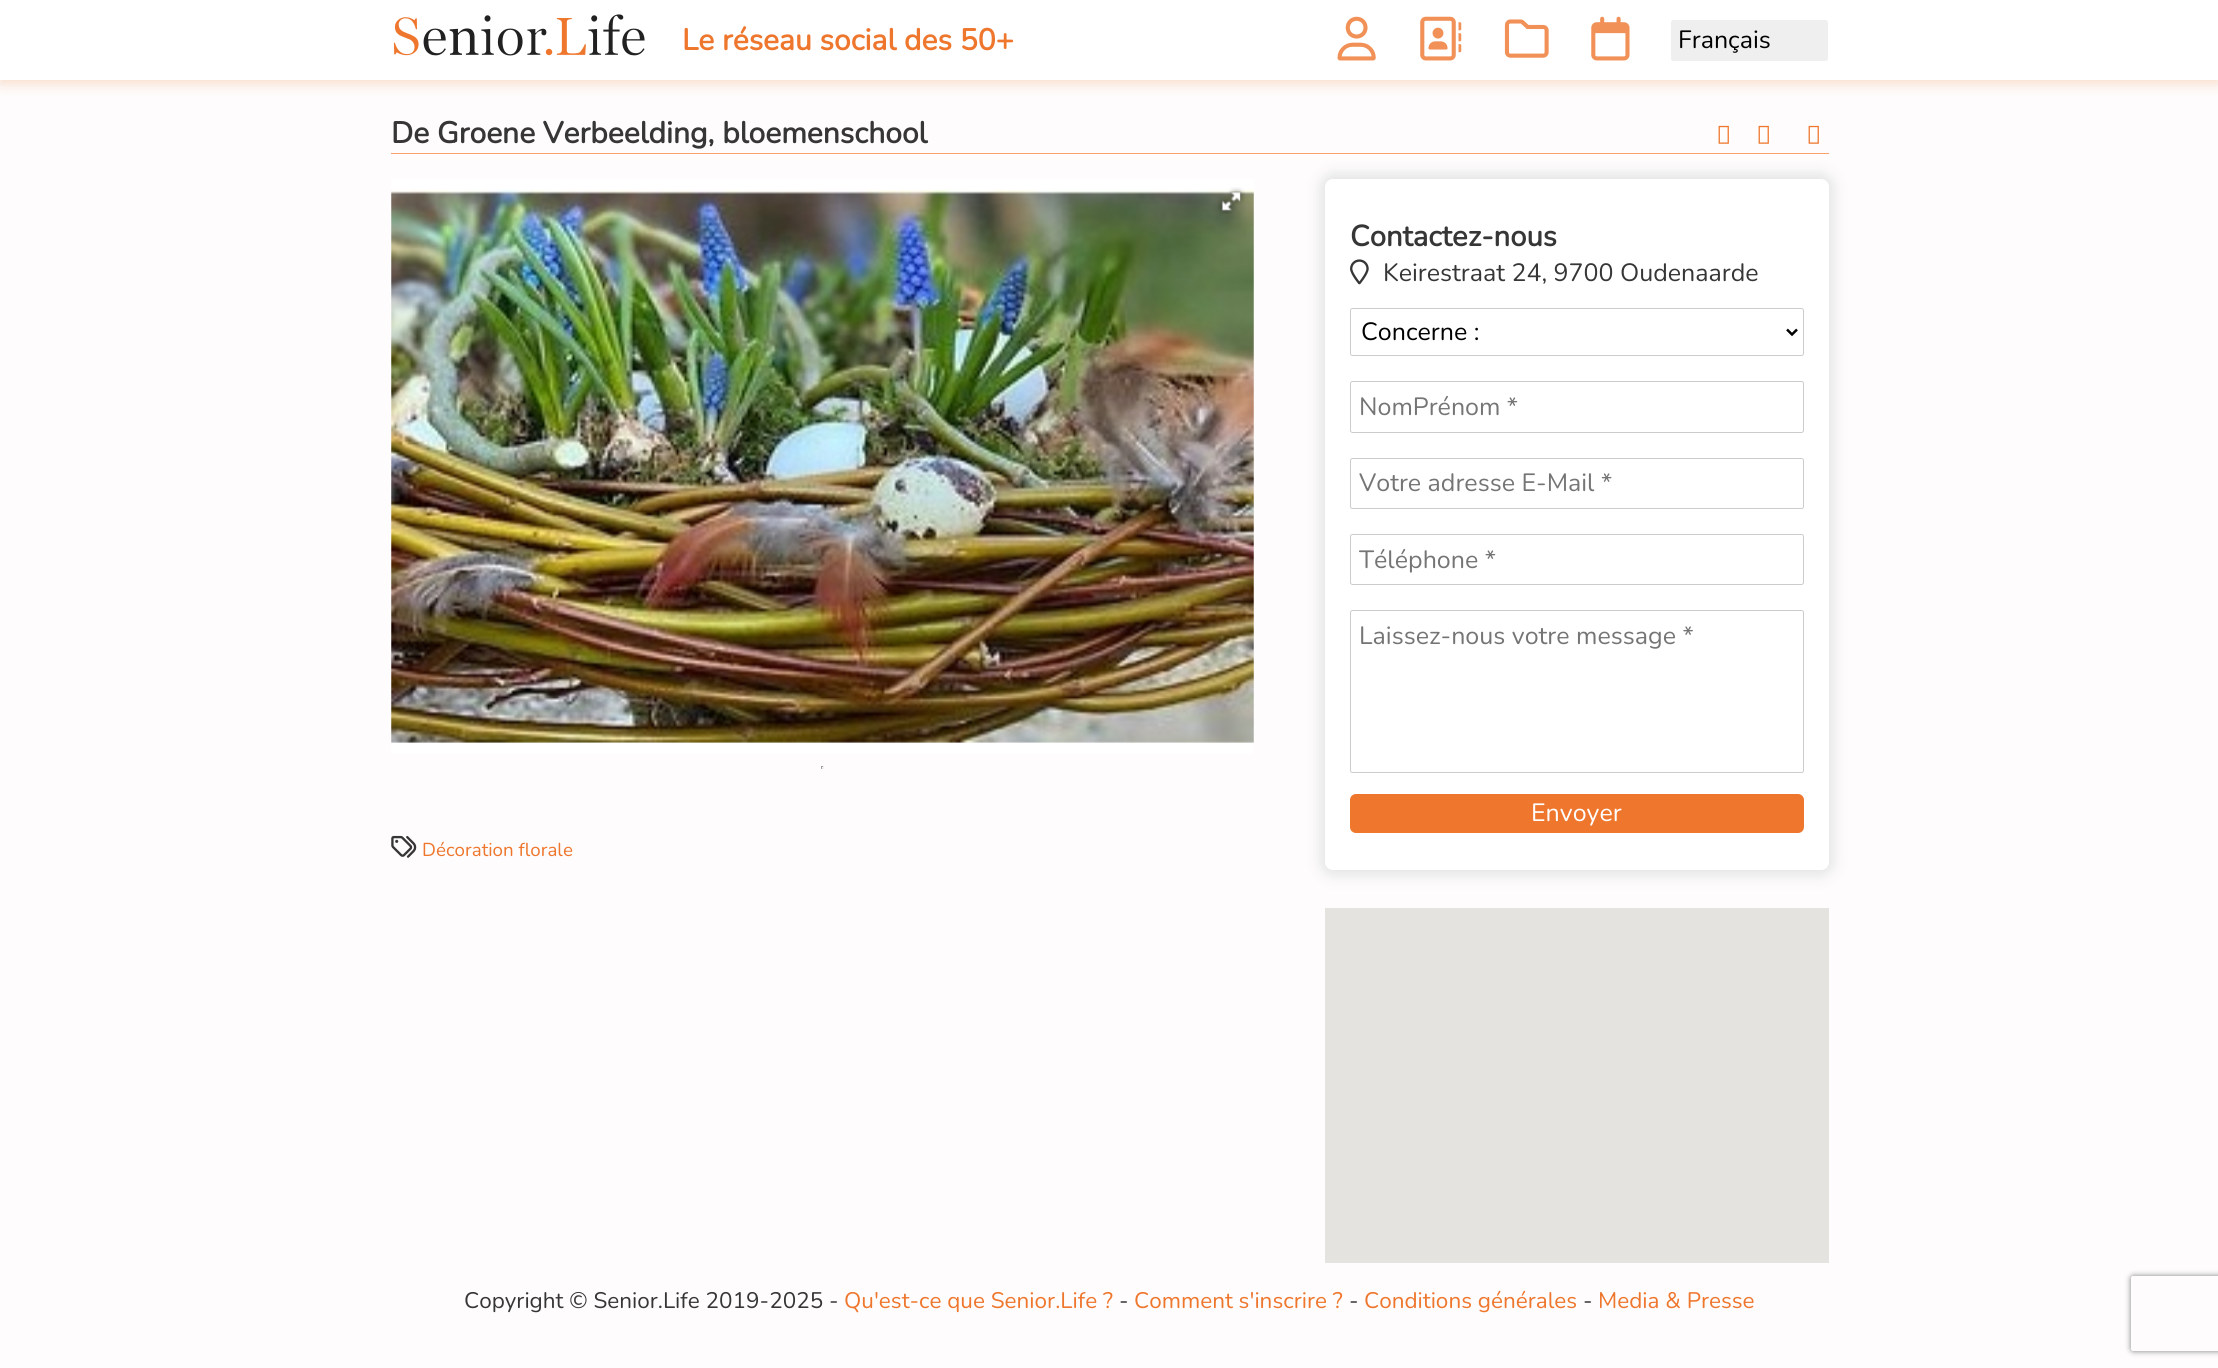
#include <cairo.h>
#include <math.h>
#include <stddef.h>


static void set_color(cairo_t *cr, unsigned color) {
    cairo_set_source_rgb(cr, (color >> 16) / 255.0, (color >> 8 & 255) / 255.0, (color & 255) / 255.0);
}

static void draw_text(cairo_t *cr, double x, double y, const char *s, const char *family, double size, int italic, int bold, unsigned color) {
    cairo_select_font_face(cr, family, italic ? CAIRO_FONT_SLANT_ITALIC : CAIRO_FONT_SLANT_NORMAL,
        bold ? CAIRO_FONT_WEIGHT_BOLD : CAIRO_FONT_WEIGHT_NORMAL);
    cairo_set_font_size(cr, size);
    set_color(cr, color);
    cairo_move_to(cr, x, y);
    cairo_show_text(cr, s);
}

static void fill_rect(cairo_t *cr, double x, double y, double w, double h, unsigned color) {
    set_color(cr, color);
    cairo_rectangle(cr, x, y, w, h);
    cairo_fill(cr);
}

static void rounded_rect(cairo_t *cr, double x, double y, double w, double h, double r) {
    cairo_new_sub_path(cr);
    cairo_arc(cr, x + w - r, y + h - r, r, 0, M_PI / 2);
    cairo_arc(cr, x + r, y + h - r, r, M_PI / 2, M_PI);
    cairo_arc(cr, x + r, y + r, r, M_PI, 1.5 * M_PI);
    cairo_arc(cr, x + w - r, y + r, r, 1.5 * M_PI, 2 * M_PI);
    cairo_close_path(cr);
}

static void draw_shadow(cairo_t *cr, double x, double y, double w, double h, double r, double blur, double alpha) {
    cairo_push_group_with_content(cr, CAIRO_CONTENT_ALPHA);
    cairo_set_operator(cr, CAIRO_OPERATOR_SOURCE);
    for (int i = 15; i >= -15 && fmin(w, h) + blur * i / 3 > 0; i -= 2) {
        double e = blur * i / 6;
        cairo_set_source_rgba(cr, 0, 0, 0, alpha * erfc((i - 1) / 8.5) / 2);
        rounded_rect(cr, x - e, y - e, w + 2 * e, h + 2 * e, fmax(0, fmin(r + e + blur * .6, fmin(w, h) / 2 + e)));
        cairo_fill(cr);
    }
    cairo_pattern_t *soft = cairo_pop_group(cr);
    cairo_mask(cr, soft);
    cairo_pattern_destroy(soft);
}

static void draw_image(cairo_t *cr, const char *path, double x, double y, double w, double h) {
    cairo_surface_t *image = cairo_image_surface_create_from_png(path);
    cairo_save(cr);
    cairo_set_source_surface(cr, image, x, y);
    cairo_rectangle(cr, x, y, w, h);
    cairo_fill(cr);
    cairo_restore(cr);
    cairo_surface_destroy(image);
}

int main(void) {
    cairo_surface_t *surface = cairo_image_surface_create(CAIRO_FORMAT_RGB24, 2218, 1368);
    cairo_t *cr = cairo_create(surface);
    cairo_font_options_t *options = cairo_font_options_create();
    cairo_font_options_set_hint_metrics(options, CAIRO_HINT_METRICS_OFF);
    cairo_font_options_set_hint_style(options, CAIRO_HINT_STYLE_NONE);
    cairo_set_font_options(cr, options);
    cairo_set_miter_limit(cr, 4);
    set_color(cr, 0xFEFCFC);
    cairo_paint(cr);
    set_color(cr, 0xF9DDCC);
    draw_shadow(cr, 0, 4, 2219, 80, 0, 6, 1);
    fill_rect(cr, 0, 0, 2218, 80, 0xFFFFFF);
    draw_image(cr, "assets/img1.png", 393, 14, 252, 42);
    draw_text(cr, 682, 50, "Le réseau social des 50+", "Nunito", 30, 0, 1, 0xEE762D);
    draw_image(cr, "assets/img2.png", 1337, 16, 39, 45);
    draw_image(cr, "assets/img3.png", 1420, 16, 42, 45);
    draw_image(cr, "assets/img4.png", 1504, 19, 45, 39);
    draw_image(cr, "assets/img5.png", 1591, 16, 39, 45);
    set_color(cr, 0xEFEFEF);
    rounded_rect(cr, 1671, 20, 157, 41, 2.5);
    cairo_fill(cr);
    draw_text(cr, 1678, 48, "Français", "Nunito", 25, 0, 0, 0x000000);
    fill_rect(cr, 391, 153, 1438, 1, 0xF9A16B);
    draw_text(cr, 391, 143, "De Groene Verbeelding, bloemenschool", "Nunito", 30, 0, 1, 0x363636);
    draw_image(cr, "assets/img6.png", 1718, 125, 11, 19);
    draw_image(cr, "assets/img6.png", 1758, 125, 11, 19);
    draw_image(cr, "assets/img6.png", 1808, 125, 11, 19);
    set_color(cr, 0xDDDDDD);
    draw_shadow(cr, 1323, 176, 508, 697, 10, 8, 1);
    set_color(cr, 0xFFFFFF);
    rounded_rect(cr, 1325, 179, 504, 691, 8);
    cairo_fill(cr);
    draw_text(cr, 1350, 246, "Contactez-nous", "Nunito", 29.25, 0, 1, 0x363636);
    draw_image(cr, "assets/img7.png", 1350, 259, 19, 26);
    draw_text(cr, 1383, 281, "Keirestraat 24, 9700 Oudenaarde", "Nunito", 25, 0, 0, 0x363636);
    rounded_rect(cr, 1350.5, 308.5, 453, 47, 2);
    set_color(cr, 0xCCCCCC);
    cairo_set_line_width(cr, 1);
    cairo_stroke(cr);
    cairo_new_path(cr);
    cairo_move_to(cr, 1787, 329.5);
    cairo_line_to(cr, 1792, 334.5);
    cairo_line_to(cr, 1797, 329.5);
    set_color(cr, 0x000000);
    cairo_set_line_width(cr, 2.5);
    cairo_stroke(cr);
    draw_text(cr, 1361, 340, "Concerne :", "Nunito", 25, 0, 0, 0x000000);
    rounded_rect(cr, 1350.5, 381.5, 453, 51, 2);
    set_color(cr, 0xCCCCCC);
    cairo_set_line_width(cr, 1);
    cairo_stroke(cr);
    draw_text(cr, 1359, 415, "NomPrénom *", "Nunito", 25, 0, 0, 0x757575);
    rounded_rect(cr, 1350.5, 458.5, 453, 50, 2);
    set_color(cr, 0xCCCCCC);
    cairo_stroke(cr);
    draw_text(cr, 1359, 491, "Votre adresse E-Mail *", "Nunito", 25, 0, 0, 0x757575);
    rounded_rect(cr, 1350.5, 534.5, 453, 50, 2);
    set_color(cr, 0xCCCCCC);
    cairo_stroke(cr);
    draw_text(cr, 1359, 568, "Téléphone *", "Nunito", 25, 0, 0, 0x757575);
    rounded_rect(cr, 1350.5, 610.5, 453, 162, 2);
    set_color(cr, 0xCCCCCC);
    cairo_stroke(cr);
    draw_text(cr, 1359, 644, "Laissez-nous votre message *", "Nunito", 25, 0, 0, 0x757575);
    set_color(cr, 0xEE762D);
    rounded_rect(cr, 1350, 794, 454, 39, 6);
    cairo_fill(cr);
    draw_text(cr, 1531, 821, "Envoyer", "Nunito", 25, 0, 0, 0xFFFFFF);
    fill_rect(cr, 1325, 908, 504, 355, 0xE5E3DF);
    fill_rect(cr, 391, 179, 863, 575, 0xFFFFFF);
    draw_image(cr, "assets/img8.png", 391, 189, 863, 554);
    draw_image(cr, "assets/img9.png", 1218, 187, 27, 27);
    fill_rect(cr, 821, 766, 3, 1, 0x9F9F9F);
    fill_rect(cr, 823, 766, 1, 3, 0xEEEEEE);
    fill_rect(cr, 821, 768, 3, 1, 0xEEEEEE);
    fill_rect(cr, 821, 766, 1, 3, 0x9F9F9F);
    draw_image(cr, "assets/img10.png", 391, 835, 26, 23);
    draw_text(cr, 422, 856, "Décoration florale", "Nunito", 18.75, 0, 0, 0xEE762D);
    draw_text(cr, 464, 1308, "Copyright © Senior.Life 2019-2025 -", "Nunito", 22.5, 0, 0, 0x363636);
    draw_text(cr, 844, 1308, "Qu'est-ce que Senior.Life ?", "Nunito", 22.5, 0, 0, 0xEE762D);
    draw_text(cr, 1119, 1308, "-", "Nunito", 22.5, 0, 0, 0x363636);
    draw_text(cr, 1134, 1308, "Comment s'inscrire ?", "Nunito", 22.5, 0, 0, 0xEE762D);
    draw_text(cr, 1349, 1308, "-", "Nunito", 22.5, 0, 0, 0x363636);
    draw_text(cr, 1364, 1308, "Conditions générales", "Nunito", 22.5, 0, 0, 0xEE762D);
    draw_text(cr, 1583, 1308, "-", "Nunito", 22.5, 0, 0, 0x363636);
    draw_text(cr, 1598, 1308, "Media & Presse", "Nunito", 22.5, 0, 0, 0xEE762D);
    cairo_save(cr);
    cairo_set_fill_rule(cr, CAIRO_FILL_RULE_EVEN_ODD);
    cairo_new_path(cr);
    cairo_move_to(cr, 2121, 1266);
    cairo_line_to(cr, 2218, 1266);
    cairo_line_to(cr, 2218, 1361);
    cairo_line_to(cr, 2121, 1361);
    cairo_close_path(cr);
    cairo_move_to(cr, 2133.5, 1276);
    cairo_line_to(cr, 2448.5, 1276);
    cairo_curve_to(cr, 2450, 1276, 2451, 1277, 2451, 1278.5);
    cairo_line_to(cr, 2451, 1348.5);
    cairo_curve_to(cr, 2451, 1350, 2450, 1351, 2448.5, 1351);
    cairo_line_to(cr, 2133.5, 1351);
    cairo_curve_to(cr, 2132, 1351, 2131, 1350, 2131, 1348.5);
    cairo_line_to(cr, 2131, 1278.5);
    cairo_curve_to(cr, 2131, 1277, 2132, 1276, 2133.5, 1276);
    cairo_close_path(cr);
    cairo_clip(cr);
    set_color(cr, 0x808080);
    draw_shadow(cr, 2131, 1276, 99, 75, 2.5, 3, 1);
    cairo_restore(cr);
    cairo_surface_write_to_png(surface, "output.png");
    cairo_font_options_destroy(options);
    cairo_destroy(cr);
    cairo_surface_destroy(surface);
    return 0;
}
